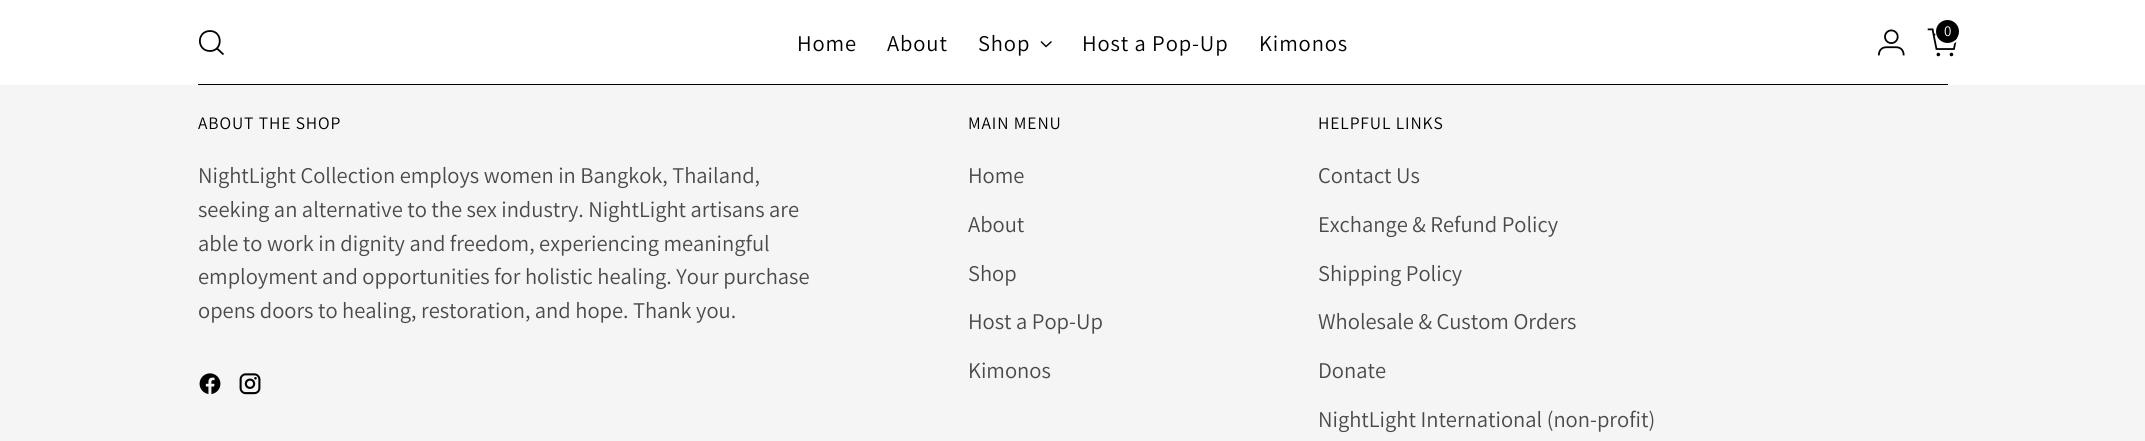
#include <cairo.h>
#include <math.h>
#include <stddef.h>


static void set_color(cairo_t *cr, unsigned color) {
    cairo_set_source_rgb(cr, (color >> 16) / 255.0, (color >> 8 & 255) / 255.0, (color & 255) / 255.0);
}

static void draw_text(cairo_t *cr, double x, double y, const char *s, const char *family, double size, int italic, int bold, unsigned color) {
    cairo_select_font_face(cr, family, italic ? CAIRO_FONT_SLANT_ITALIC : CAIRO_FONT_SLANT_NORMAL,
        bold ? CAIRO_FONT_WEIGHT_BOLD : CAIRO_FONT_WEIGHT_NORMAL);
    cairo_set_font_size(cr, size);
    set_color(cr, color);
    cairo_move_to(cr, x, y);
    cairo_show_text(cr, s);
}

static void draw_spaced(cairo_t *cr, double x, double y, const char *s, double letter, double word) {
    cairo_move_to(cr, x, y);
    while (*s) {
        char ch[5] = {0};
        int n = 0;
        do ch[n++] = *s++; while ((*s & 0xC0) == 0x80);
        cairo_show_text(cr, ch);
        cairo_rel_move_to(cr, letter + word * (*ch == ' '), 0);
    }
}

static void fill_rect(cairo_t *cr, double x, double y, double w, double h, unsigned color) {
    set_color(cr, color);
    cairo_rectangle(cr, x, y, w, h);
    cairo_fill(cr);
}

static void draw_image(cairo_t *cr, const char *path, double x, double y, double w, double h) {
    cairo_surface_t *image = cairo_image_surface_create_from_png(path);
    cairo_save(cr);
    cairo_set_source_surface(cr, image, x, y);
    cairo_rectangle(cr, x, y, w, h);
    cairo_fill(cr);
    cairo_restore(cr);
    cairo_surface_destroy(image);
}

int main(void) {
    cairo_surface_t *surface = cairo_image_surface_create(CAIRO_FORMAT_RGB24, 2145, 441);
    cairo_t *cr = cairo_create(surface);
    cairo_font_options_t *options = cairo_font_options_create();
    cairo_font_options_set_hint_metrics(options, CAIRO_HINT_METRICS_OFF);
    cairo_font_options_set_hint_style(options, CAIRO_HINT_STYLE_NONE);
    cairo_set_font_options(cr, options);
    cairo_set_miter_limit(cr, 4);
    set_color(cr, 0xF5F5F5);
    cairo_paint(cr);
    fill_rect(cr, 0, 0, 2145, 85, 0xFFFFFF);
    fill_rect(cr, 198, 84, 1750, 1, 0x000000);
    cairo_new_path(cr);
    cairo_move_to(cr, 210, 51);
    cairo_curve_to(cr, 223, 51, 223, 31, 210, 31);
    cairo_curve_to(cr, 196.5, 31, 196.5, 51, 210, 51);
    cairo_close_path(cr);
    cairo_set_line_width(cr, 1.8);
    cairo_set_line_cap(cr, CAIRO_LINE_CAP_ROUND);
    cairo_stroke(cr);
    cairo_new_path(cr);
    cairo_move_to(cr, 217, 48.5);
    cairo_line_to(cr, 223.5, 54.5);
    cairo_set_line_cap(cr, CAIRO_LINE_CAP_BUTT);
    cairo_stroke(cr);
    cairo_select_font_face(cr, "Assistant", CAIRO_FONT_SLANT_NORMAL, CAIRO_FONT_WEIGHT_NORMAL);
    cairo_set_font_size(cr, 22.5);
    draw_spaced(cr, 797, 51, "Home", 0.9, 0);
    draw_spaced(cr, 887, 51, "About", 0.9, 0);
    draw_spaced(cr, 978, 51, "Shop", 0.9, 0);
    cairo_new_path(cr);
    cairo_move_to(cr, 1041, 41.5);
    cairo_line_to(cr, 1046, 46.5);
    cairo_line_to(cr, 1051.5, 41.5);
    cairo_set_line_width(cr, 1.4);
    cairo_stroke(cr);
    draw_spaced(cr, 1082, 51, "Host a Pop-Up", 0.9, 0);
    draw_spaced(cr, 1259, 51, "Kimonos", 0.9, 0);
    draw_image(cr, "assets/img1.png", 1878, 29, 27, 27);
    draw_image(cr, "assets/img2.png", 1927, 28, 31, 29);
    cairo_arc(cr, 1948, 32, 12, 0, 2 * M_PI);
    set_color(cr, 0xFFFFFF);
    cairo_set_line_width(cr, 2);
    cairo_stroke(cr);
    set_color(cr, 0x000000);
    cairo_arc(cr, 1947.5, 31.5, 11.5, 0, 2 * M_PI);
    cairo_fill(cr);
    draw_text(cr, 1944, 36, "0", "Assistant", 15, 0, 0, 0xFFFFFF);
    cairo_set_font_size(cr, 17.5);
    set_color(cr, 0x000000);
    draw_spaced(cr, 198, 129, "ABOUT THE SHOP", 0.9, 0);
    draw_text(cr, 198, 183, "NightLight Collection employs women in Bangkok, Thailand,", "Assistant", 22.5, 0, 0, 0x4A4A4A);
    draw_text(cr, 198, 217, "seeking an alternative to the sex industry. NightLight artisans are", "Assistant", 22.5, 0, 0, 0x4A4A4A);
    draw_text(cr, 198, 251, "able to work in dignity and freedom, experiencing meaningful", "Assistant", 22.5, 0, 0, 0x4A4A4A);
    draw_text(cr, 198, 284, "employment and opportunities for holistic healing. Your purchase", "Assistant", 22.5, 0, 0, 0x4A4A4A);
    draw_text(cr, 198, 318, "opens doors to healing, restoration, and hope. Thank you.", "Assistant", 22.5, 0, 0, 0x4A4A4A);
    draw_image(cr, "assets/img3.png", 199, 373, 22, 21);
    draw_image(cr, "assets/img4.png", 239, 373, 22, 22);
    cairo_set_font_size(cr, 17.5);
    set_color(cr, 0x000000);
    draw_spaced(cr, 968, 129, "MAIN MENU", 0.9, 0);
    draw_text(cr, 968, 183, "Home", "Assistant", 22.5, 0, 0, 0x4A4A4A);
    draw_text(cr, 968, 232, "About", "Assistant", 22.5, 0, 0, 0x4A4A4A);
    draw_text(cr, 968, 281, "Shop", "Assistant", 22.5, 0, 0, 0x4A4A4A);
    draw_text(cr, 968, 329, "Host a Pop-Up", "Assistant", 22.5, 0, 0, 0x4A4A4A);
    draw_text(cr, 968, 378, "Kimonos", "Assistant", 22.5, 0, 0, 0x4A4A4A);
    cairo_set_font_size(cr, 17.5);
    set_color(cr, 0x000000);
    draw_spaced(cr, 1318, 129, "HELPFUL LINKS", 0.9, 0);
    draw_text(cr, 1318, 183, "Contact Us", "Assistant", 22.5, 0, 0, 0x4A4A4A);
    draw_text(cr, 1318, 232, "Exchange & Refund Policy", "Assistant", 22.5, 0, 0, 0x4A4A4A);
    draw_text(cr, 1318, 281, "Shipping Policy", "Assistant", 22.5, 0, 0, 0x4A4A4A);
    draw_text(cr, 1318, 329, "Wholesale & Custom Orders", "Assistant", 22.5, 0, 0, 0x4A4A4A);
    draw_text(cr, 1318, 378, "Donate", "Assistant", 22.5, 0, 0, 0x4A4A4A);
    draw_text(cr, 1318, 427, "NightLight International (non-profit)", "Assistant", 22.5, 0, 0, 0x4A4A4A);
    cairo_surface_write_to_png(surface, "output.png");
    cairo_font_options_destroy(options);
    cairo_destroy(cr);
    cairo_surface_destroy(surface);
    return 0;
}
